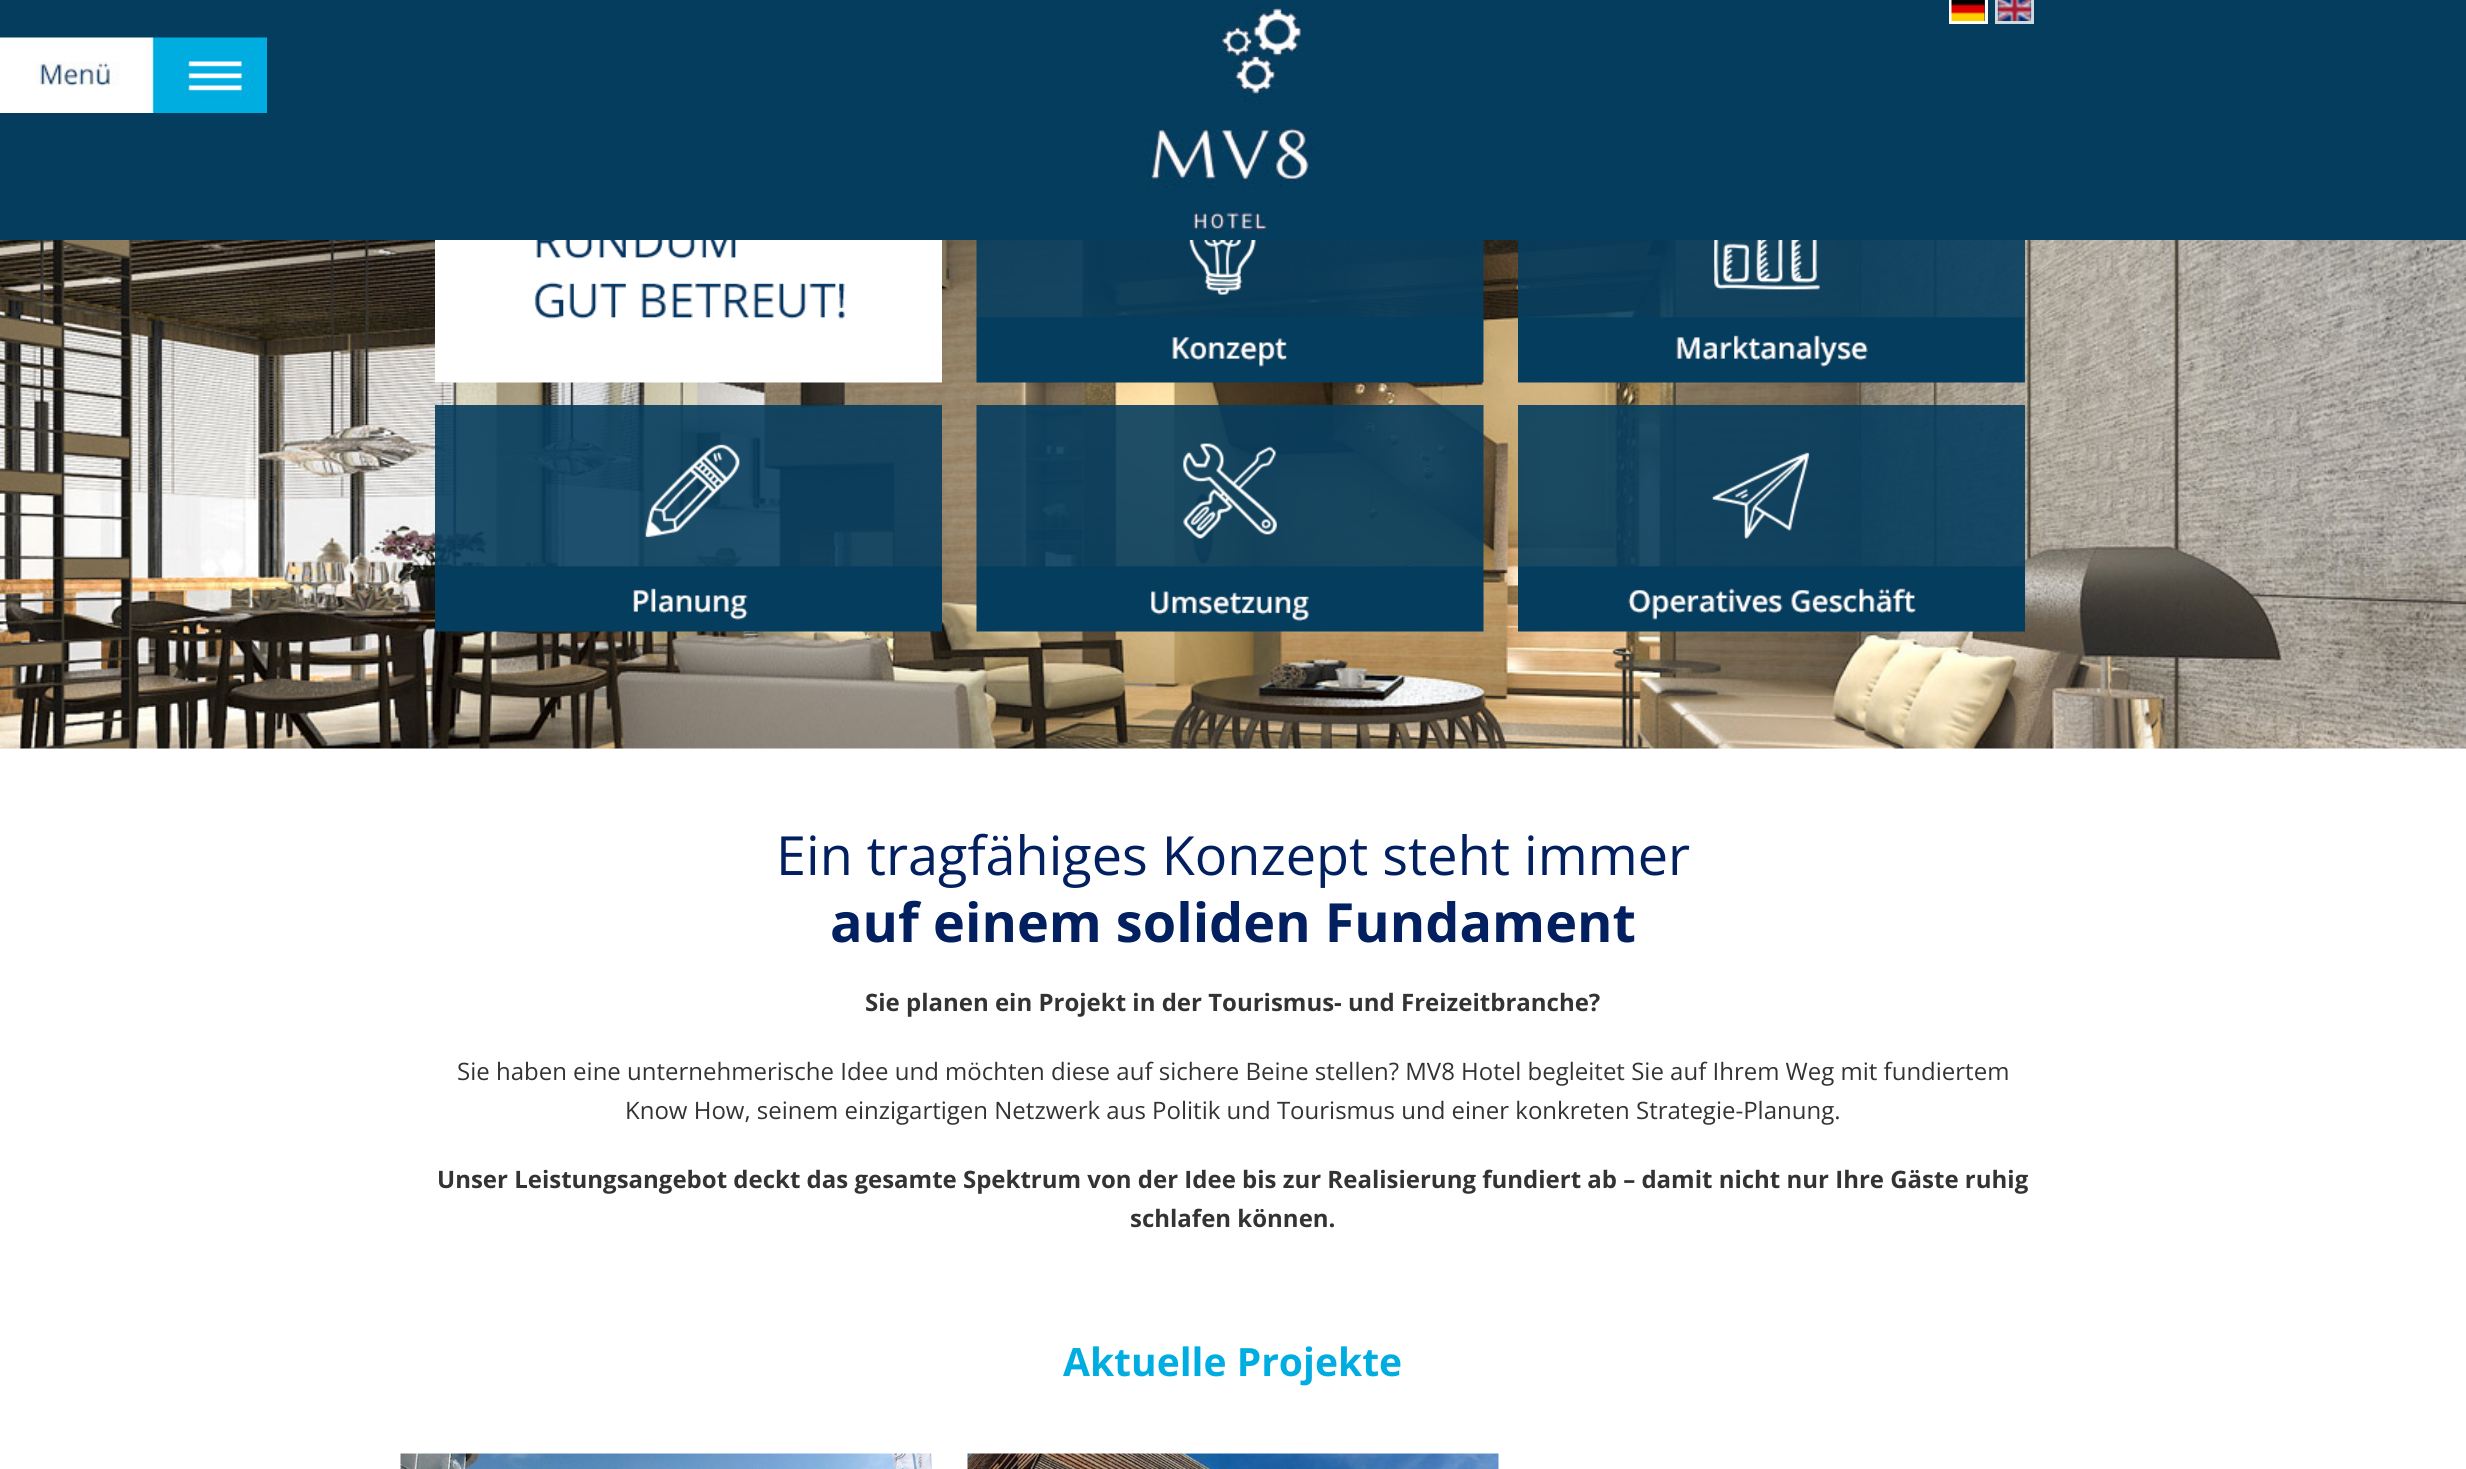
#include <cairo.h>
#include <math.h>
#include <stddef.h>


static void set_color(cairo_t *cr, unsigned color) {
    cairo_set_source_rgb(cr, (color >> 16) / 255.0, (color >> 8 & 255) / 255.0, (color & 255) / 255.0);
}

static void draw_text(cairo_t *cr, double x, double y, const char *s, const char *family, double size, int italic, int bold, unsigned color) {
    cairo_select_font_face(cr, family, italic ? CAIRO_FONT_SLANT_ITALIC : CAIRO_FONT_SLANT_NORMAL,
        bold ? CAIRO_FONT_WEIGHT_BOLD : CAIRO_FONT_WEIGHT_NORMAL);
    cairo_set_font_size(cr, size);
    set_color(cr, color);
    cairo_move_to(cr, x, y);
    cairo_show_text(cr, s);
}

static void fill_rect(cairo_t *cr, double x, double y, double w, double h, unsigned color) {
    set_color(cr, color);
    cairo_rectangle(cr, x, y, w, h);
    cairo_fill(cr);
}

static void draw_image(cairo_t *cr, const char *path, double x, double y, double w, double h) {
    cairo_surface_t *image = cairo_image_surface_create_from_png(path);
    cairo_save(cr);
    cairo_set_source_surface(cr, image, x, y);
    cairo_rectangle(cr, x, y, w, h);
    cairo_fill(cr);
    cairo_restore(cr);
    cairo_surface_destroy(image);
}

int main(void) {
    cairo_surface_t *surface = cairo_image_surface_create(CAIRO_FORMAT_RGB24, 2466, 1469);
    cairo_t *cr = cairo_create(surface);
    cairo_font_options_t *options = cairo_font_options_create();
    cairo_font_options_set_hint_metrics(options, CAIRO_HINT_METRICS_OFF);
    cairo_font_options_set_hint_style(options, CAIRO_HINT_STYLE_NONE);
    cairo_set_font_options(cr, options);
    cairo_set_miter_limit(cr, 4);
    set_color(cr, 0xFFFFFF);
    cairo_paint(cr);
    fill_rect(cr, 0, 0, 2466, 240, 0x053D5E);
    draw_image(cr, "assets/img1.png", 0, 37, 267, 76);
    draw_image(cr, "assets/img2.png", 1146, 7, 168, 226);
    fill_rect(cr, 1985, 0, 3, 24, 0xFFFFFF);
    fill_rect(cr, 1949, 21, 39, 3, 0xFFFFFF);
    fill_rect(cr, 1949, 0, 3, 24, 0xFFFFFF);
    draw_image(cr, "assets/img3.png", 1951, 0, 34, 21);
    fill_rect(cr, 2031, 0, 3, 24, 0xCDD8DF);
    fill_rect(cr, 1995, 21, 39, 3, 0xCDD8DF);
    fill_rect(cr, 1995, 0, 3, 24, 0xCDD8DF);
    draw_image(cr, "assets/img4.png", 1997, 0, 35, 21);
    draw_image(cr, "assets/img5.png", 0, 240, 2466, 509);
    draw_image(cr, "assets/img6.png", 435, 240, 507, 143);
    draw_image(cr, "assets/img7.png", 976, 240, 508, 143);
    draw_image(cr, "assets/img8.png", 1518, 240, 507, 143);
    draw_image(cr, "assets/img9.png", 435, 405, 507, 227);
    draw_image(cr, "assets/img10.png", 976, 405, 508, 227);
    draw_image(cr, "assets/img11.png", 1518, 405, 507, 227);
    draw_text(cr, 776, 875, "Ein tragfähiges Konzept steht immer", "Open Sans", 54, 0, 0, 0x021F60);
    draw_text(cr, 830, 942, "auf einem soliden Fundament", "Open Sans", 54, 0, 1, 0x021F60);
    draw_text(cr, 865, 1011, "Sie planen ein Projekt in der Tourismus- und Freizeitbranche?", "Open Sans", 24, 0, 1, 0x333333);
    draw_text(cr, 457, 1080, "Sie haben eine unternehmerische Idee und möchten diese auf sichere Beine stellen? MV8 Hotel begleitet Sie auf Ihrem Weg mit fundiertem", "Open Sans", 24, 0, 0, 0x333333);
    draw_text(cr, 625, 1119, "Know How, seinem einzigartigen Netzwerk aus Politik und Tourismus und einer konkreten Strategie-Planung.", "Open Sans", 24, 0, 0, 0x333333);
    draw_text(cr, 437, 1188, "Unser Leistungsangebot deckt das gesamte Spektrum von der Idee bis zur Realisierung fundiert ab – damit nicht nur Ihre Gäste ruhig", "Open Sans", 24, 0, 1, 0x333333);
    draw_text(cr, 1130, 1227, "schlafen können.", "Open Sans", 24, 0, 1, 0x333333);
    draw_text(cr, 1063, 1376, "Aktuelle Projekte", "Open Sans", 39, 0, 1, 0x00ADE1);
    draw_image(cr, "assets/img12.png", 400, 1453, 532, 16);
    draw_image(cr, "assets/img13.png", 967, 1453, 532, 16);
    cairo_surface_write_to_png(surface, "output.png");
    cairo_font_options_destroy(options);
    cairo_destroy(cr);
    cairo_surface_destroy(surface);
    return 0;
}
